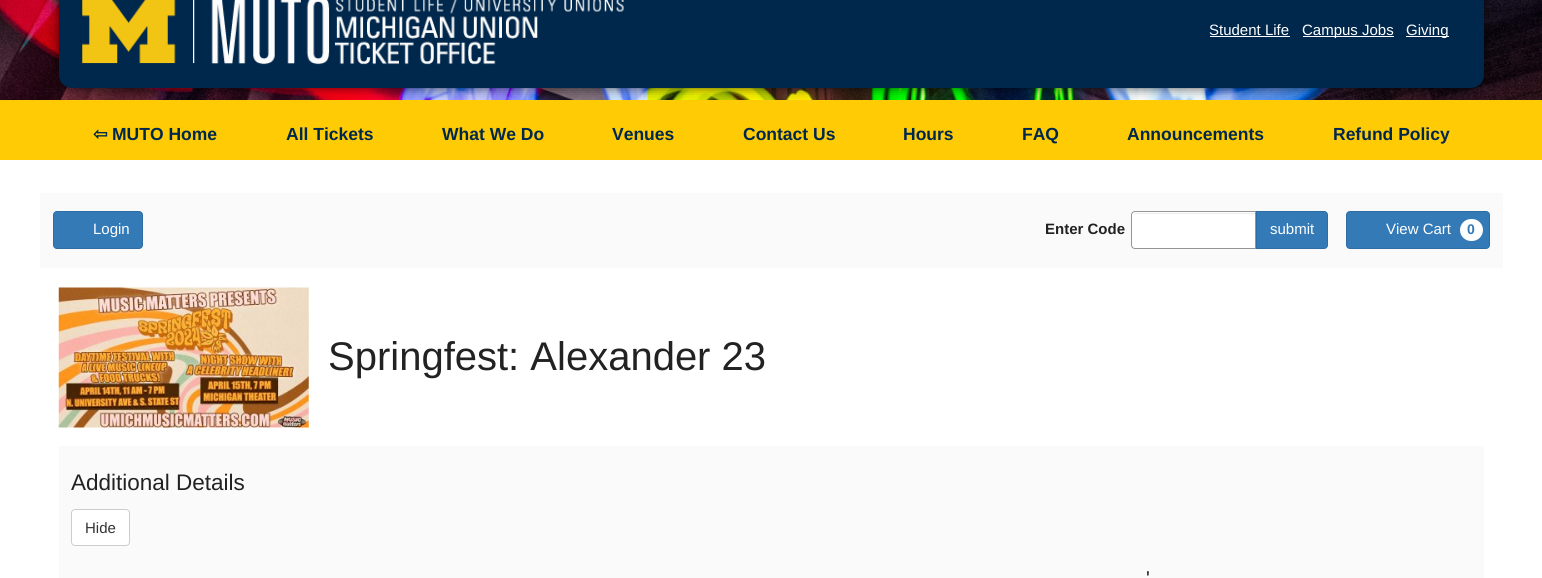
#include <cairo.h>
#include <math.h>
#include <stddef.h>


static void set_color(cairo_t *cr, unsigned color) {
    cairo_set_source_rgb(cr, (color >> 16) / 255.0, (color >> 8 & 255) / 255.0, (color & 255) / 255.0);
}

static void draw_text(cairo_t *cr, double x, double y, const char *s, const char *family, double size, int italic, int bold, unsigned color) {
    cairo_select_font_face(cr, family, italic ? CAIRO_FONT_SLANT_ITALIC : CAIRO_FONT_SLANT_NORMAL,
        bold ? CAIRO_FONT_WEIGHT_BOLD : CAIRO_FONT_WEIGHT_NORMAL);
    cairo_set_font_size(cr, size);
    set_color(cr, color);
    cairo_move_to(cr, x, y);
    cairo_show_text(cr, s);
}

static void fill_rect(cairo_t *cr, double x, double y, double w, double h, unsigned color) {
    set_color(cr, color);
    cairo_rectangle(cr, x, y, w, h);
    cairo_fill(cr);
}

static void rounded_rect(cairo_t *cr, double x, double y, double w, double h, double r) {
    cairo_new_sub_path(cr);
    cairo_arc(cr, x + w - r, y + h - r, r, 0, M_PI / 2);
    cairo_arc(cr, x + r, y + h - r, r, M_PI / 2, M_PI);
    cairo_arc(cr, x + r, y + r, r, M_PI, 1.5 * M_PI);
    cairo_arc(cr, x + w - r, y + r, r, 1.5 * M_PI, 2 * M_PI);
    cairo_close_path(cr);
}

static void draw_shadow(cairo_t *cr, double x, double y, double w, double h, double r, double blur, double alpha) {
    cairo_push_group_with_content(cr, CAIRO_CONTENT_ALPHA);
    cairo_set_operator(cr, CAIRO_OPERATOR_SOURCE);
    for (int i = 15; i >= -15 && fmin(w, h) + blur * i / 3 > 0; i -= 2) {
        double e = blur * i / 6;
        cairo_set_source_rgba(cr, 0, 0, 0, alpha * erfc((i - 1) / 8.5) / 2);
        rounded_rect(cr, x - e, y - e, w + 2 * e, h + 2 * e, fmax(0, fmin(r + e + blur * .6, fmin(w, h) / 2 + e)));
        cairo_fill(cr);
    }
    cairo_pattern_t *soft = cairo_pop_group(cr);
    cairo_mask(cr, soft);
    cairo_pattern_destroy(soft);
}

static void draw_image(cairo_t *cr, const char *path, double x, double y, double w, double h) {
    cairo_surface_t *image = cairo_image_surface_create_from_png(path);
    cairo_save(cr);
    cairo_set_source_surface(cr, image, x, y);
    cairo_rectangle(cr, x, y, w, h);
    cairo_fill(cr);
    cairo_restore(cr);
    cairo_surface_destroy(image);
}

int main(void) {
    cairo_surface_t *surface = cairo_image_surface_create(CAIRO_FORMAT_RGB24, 1542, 578);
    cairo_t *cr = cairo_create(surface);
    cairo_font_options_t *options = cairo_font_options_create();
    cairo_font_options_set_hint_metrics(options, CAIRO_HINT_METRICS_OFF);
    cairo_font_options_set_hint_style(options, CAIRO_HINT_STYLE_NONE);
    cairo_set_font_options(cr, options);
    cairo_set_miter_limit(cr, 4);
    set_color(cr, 0xFFFFFF);
    cairo_paint(cr);
    draw_image(cr, "assets/img1.png", 0, 0, 1542, 100);
    set_color(cr, 0x000000);
    draw_shadow(cr, 59, -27, 1425, 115, 13, 6, 0.67);
    set_color(cr, 0x00274C);
    rounded_rect(cr, 59, -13, 1425, 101, 13);
    cairo_fill(cr);
    draw_image(cr, "assets/img2.png", 82, 0, 542, 65);
    draw_text(cr, 1209, 35, "Student Life", "Liberation Sans", 15, 0, 0, 0xFFFFFF);
    fill_rect(cr, 1210, 36, 80, 1, 0xFFFFFF);
    fill_rect(cr, 1303, 36, 91, 1, 0xFFFFFF);
    draw_text(cr, 1302, 35, "Campus Jobs", "Liberation Sans", 15, 0, 0, 0xFFFFFF);
    fill_rect(cr, 1406, 36, 43, 1, 0xFFFFFF);
    draw_text(cr, 1406, 35, "Giving", "Liberation Sans", 15, 0, 0, 0xFFFFFF);
    fill_rect(cr, 0, 100, 1542, 60, 0xFFCB05);
    draw_text(cr, 93, 140, "⇦", "DejaVu Sans", 17.5, 0, 1, 0x00274C);
    draw_text(cr, 112, 140, "MUTO Home", "Liberation Sans", 17.5, 0, 1, 0x00274C);
    draw_text(cr, 286, 140, "All Tickets", "Liberation Sans", 17.5, 0, 1, 0x00274C);
    draw_text(cr, 442, 140, "What We Do", "Liberation Sans", 17.5, 0, 1, 0x00274C);
    draw_text(cr, 612, 140, "Venues", "Liberation Sans", 17.5, 0, 1, 0x00274C);
    draw_text(cr, 743, 140, "Contact Us", "Liberation Sans", 17.5, 0, 1, 0x00274C);
    draw_text(cr, 903, 140, "Hours", "Liberation Sans", 17.5, 0, 1, 0x00274C);
    draw_text(cr, 1022, 140, "FAQ", "Liberation Sans", 17.5, 0, 1, 0x00274C);
    draw_text(cr, 1127, 140, "Announcements", "Liberation Sans", 17.5, 0, 1, 0x00274C);
    draw_text(cr, 1333, 140, "Refund Policy", "Liberation Sans", 17.5, 0, 1, 0x00274C);
    fill_rect(cr, 40, 193, 1463, 75, 0xFAFAFA);
    set_color(cr, 0x337AB7);
    rounded_rect(cr, 53.5, 211.5, 89, 37, 3.5);
    cairo_fill_preserve(cr);
    set_color(cr, 0x2D6DA3);
    cairo_set_line_width(cr, 1);
    cairo_stroke(cr);
    draw_text(cr, 93, 234, "Login", "Liberation Sans", 15, 0, 0, 0xFFFFFF);
    draw_text(cr, 1045, 234, "Enter Code", "Liberation Sans", 15, 0, 1, 0x222222);
    set_color(cr, 0xFFFFFF);
    cairo_new_path(cr);
    cairo_move_to(cr, 1135, 211);
    cairo_line_to(cr, 1256, 211);
    cairo_line_to(cr, 1256, 249);
    cairo_line_to(cr, 1135, 249);
    cairo_curve_to(cr, 1133, 249, 1131, 247, 1131, 245);
    cairo_line_to(cr, 1131, 215);
    cairo_curve_to(cr, 1131, 213, 1133, 211, 1135, 211);
    cairo_close_path(cr);
    cairo_fill(cr);
    set_color(cr, 0xECECEC);
    cairo_new_path(cr);
    cairo_move_to(cr, 1135, 214);
    cairo_line_to(cr, 1255, 214);
    cairo_line_to(cr, 1255, 213);
    cairo_line_to(cr, 1136, 213);
    cairo_curve_to(cr, 1134, 213, 1134, 214, 1133, 215);
    cairo_close_path(cr);
    cairo_fill(cr);
    cairo_new_path(cr);
    cairo_move_to(cr, 1135, 211.5);
    cairo_line_to(cr, 1255.5, 211.5);
    cairo_line_to(cr, 1255.5, 248.5);
    cairo_line_to(cr, 1135, 248.5);
    cairo_curve_to(cr, 1133, 248.5, 1131.5, 247, 1131.5, 245);
    cairo_line_to(cr, 1131.5, 215);
    cairo_curve_to(cr, 1131.5, 213, 1133, 211.5, 1135, 211.5);
    cairo_close_path(cr);
    set_color(cr, 0x949494);
    cairo_stroke(cr);
    set_color(cr, 0x337AB7);
    cairo_new_path(cr);
    cairo_move_to(cr, 1256.5, 211.5);
    cairo_line_to(cr, 1324, 211.5);
    cairo_curve_to(cr, 1326, 211.5, 1327.5, 213, 1327.5, 215);
    cairo_line_to(cr, 1327.5, 245);
    cairo_curve_to(cr, 1327.5, 247, 1326, 248.5, 1324, 248.5);
    cairo_line_to(cr, 1256.5, 248.5);
    cairo_close_path(cr);
    cairo_fill_preserve(cr);
    set_color(cr, 0x2D6DA3);
    cairo_stroke(cr);
    draw_text(cr, 1270, 234, "submit", "Liberation Sans", 15, 0, 0, 0xFFFFFF);
    set_color(cr, 0x337AB7);
    rounded_rect(cr, 1346.5, 211.5, 143, 37, 3.5);
    cairo_fill_preserve(cr);
    set_color(cr, 0x2D6DA3);
    cairo_stroke(cr);
    draw_text(cr, 1386, 234, "View Cart", "Liberation Sans", 15, 0, 0, 0xFFFFFF);
    rounded_rect(cr, 1460, 219, 23, 22, 11);
    cairo_fill(cr);
    draw_text(cr, 1467, 234, "0", "Liberation Sans", 14, 0, 1, 0x337AB7);
    draw_image(cr, "assets/img3.png", 58, 287, 251, 141);
    draw_text(cr, 328, 370, "Springfest: Alexander 23", "Liberation Sans", 40, 0, 0, 0x222222);
    fill_rect(cr, 59, 446, 1425, 132, 0xFAFAFA);
    draw_text(cr, 71, 490, "Additional Details", "Liberation Sans", 22.5, 0, 0, 0x222222);
    set_color(cr, 0xFFFFFF);
    rounded_rect(cr, 71.5, 509.5, 58, 36, 3.5);
    cairo_fill_preserve(cr);
    set_color(cr, 0xCCCCCC);
    cairo_stroke(cr);
    draw_text(cr, 85, 533, "Hide", "Liberation Sans", 15, 0, 0, 0x333333);
    draw_text(cr, 1146, 585, "'", "Liberation Sans", 20, 0, 0, 0x222222);
    cairo_surface_write_to_png(surface, "output.png");
    cairo_font_options_destroy(options);
    cairo_destroy(cr);
    cairo_surface_destroy(surface);
    return 0;
}
